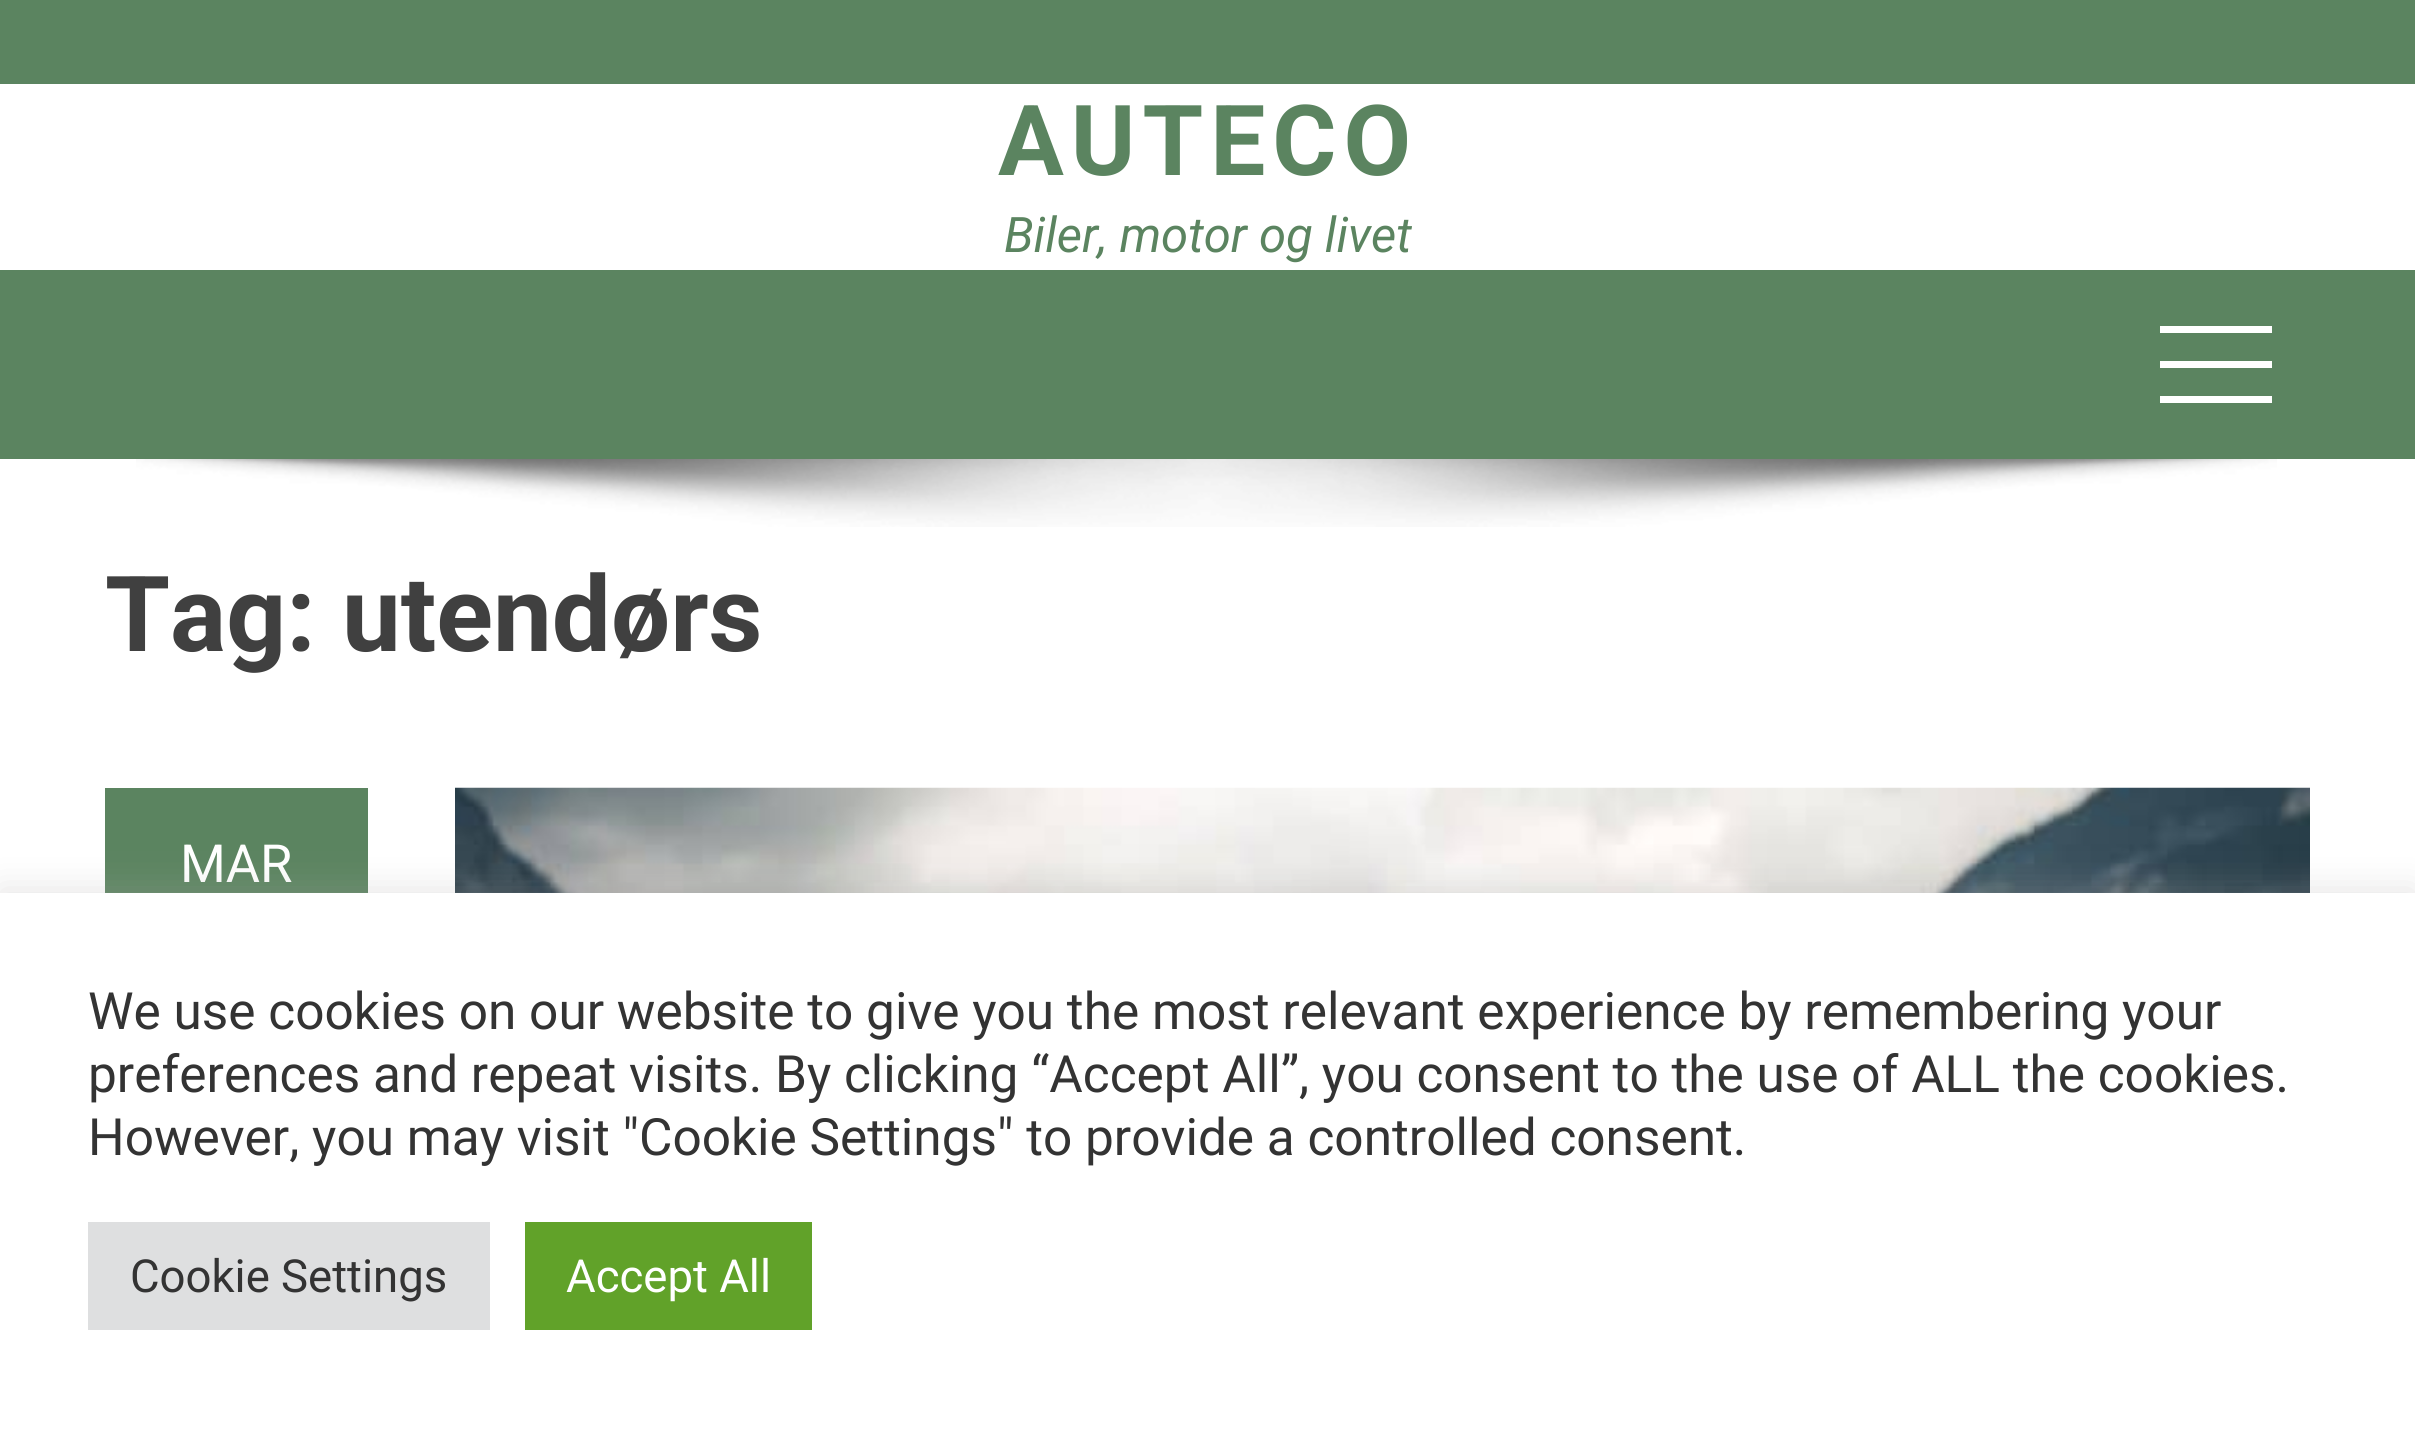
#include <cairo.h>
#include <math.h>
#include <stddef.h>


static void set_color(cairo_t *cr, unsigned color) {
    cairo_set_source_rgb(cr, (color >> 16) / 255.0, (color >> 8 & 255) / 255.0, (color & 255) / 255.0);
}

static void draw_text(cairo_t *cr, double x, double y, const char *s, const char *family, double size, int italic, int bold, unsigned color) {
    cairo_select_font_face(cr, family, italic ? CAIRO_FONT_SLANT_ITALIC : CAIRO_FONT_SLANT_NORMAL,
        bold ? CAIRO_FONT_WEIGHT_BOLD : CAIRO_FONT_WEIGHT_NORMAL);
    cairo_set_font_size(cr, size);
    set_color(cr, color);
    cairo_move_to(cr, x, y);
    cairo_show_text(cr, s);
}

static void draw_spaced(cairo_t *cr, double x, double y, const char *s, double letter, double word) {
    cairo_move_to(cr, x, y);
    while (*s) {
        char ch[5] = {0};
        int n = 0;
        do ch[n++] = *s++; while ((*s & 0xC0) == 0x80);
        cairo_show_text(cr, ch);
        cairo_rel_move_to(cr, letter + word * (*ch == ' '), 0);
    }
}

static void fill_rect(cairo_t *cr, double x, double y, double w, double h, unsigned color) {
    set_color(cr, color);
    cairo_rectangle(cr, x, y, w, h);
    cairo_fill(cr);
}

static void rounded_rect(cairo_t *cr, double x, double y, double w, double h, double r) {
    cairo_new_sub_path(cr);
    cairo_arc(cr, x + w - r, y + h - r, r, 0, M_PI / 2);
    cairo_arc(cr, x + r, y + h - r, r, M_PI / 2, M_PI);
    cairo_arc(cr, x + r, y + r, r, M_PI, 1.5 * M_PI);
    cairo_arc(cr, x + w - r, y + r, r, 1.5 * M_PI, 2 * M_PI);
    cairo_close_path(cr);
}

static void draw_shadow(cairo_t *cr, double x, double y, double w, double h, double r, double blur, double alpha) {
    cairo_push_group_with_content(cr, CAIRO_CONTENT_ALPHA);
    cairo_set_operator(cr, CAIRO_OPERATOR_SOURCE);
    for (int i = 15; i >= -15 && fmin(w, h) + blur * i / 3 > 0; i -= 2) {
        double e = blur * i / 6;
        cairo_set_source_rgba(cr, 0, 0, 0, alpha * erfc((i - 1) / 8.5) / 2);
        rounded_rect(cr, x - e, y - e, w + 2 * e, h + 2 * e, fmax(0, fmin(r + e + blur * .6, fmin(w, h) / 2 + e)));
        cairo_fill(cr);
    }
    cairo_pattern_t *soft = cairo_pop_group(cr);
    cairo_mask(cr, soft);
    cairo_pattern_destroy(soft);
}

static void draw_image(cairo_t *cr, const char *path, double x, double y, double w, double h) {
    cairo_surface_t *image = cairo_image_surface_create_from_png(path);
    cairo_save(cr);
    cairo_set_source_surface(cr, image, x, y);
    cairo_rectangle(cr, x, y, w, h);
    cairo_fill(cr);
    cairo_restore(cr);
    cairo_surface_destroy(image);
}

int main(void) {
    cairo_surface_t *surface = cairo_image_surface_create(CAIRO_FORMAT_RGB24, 2415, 1432);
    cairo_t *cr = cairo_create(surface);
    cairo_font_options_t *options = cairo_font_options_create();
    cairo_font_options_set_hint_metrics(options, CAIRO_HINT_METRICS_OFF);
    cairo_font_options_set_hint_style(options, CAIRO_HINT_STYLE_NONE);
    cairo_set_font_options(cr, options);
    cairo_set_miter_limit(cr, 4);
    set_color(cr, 0xFFFFFF);
    cairo_paint(cr);
    fill_rect(cr, 0, 0, 2415, 84, 0x5B8460);
    cairo_select_font_face(cr, "Roboto", CAIRO_FONT_SLANT_NORMAL, CAIRO_FONT_WEIGHT_BOLD);
    cairo_set_font_size(cr, 98);
    draw_spaced(cr, 998, 175, "AUTECO", 7, 0);
    draw_text(cr, 1004, 252, "Biler, motor og livet", "Roboto", 49, 1, 0, 0x5B8460);
    fill_rect(cr, 0, 270, 2415, 189, 0x5B8460);
    fill_rect(cr, 2160, 326, 112, 7, 0xFFFFFF);
    fill_rect(cr, 2160, 396, 112, 7, 0xFFFFFF);
    fill_rect(cr, 2160, 361, 112, 7, 0xFFFFFF);
    draw_image(cr, "assets/img1.png", 136, 459, 2141, 68);
    draw_text(cr, 105, 651, "Tag: utendørs", "Roboto", 105, 0, 1, 0x404040);
    fill_rect(cr, 105, 788, 263, 105, 0x5B8460);
    draw_text(cr, 180, 882, "MAR", "Roboto", 52.5, 0, 0, 0xFFFFFF);
    draw_image(cr, "assets/img2.png", 455, 787, 1855, 106);
    set_color(cr, 0xACABAB);
    draw_shadow(cr, 0, 889, 2415, 543, 0, 17.5, 0.3);
    fill_rect(cr, 0, 893, 2415, 539, 0xFFFFFF);
    draw_text(cr, 88, 1029, "We use cookies on our website to give you the most relevant experience by remembering your", "Roboto", 51.35, 0, 0, 0x333333);
    draw_text(cr, 88, 1092, "preferences and repeat visits. By clicking “Accept All”, you consent to the use of ALL the cookies.", "Roboto", 51.35, 0, 0, 0x333333);
    draw_text(cr, 88, 1155, "However, you may visit \"Cookie Settings\" to provide a controlled consent.", "Roboto", 51.35, 0, 0, 0x333333);
    fill_rect(cr, 88, 1222, 402, 108, 0xDEDFE0);
    draw_text(cr, 130, 1292, "Cookie Settings", "Roboto", 45.5, 0, 0, 0x333333);
    fill_rect(cr, 525, 1222, 287, 108, 0x61A229);
    draw_text(cr, 566, 1292, "Accept All", "Roboto", 45.5, 0, 0, 0xFFFFFF);
    cairo_surface_write_to_png(surface, "output.png");
    cairo_font_options_destroy(options);
    cairo_destroy(cr);
    cairo_surface_destroy(surface);
    return 0;
}
